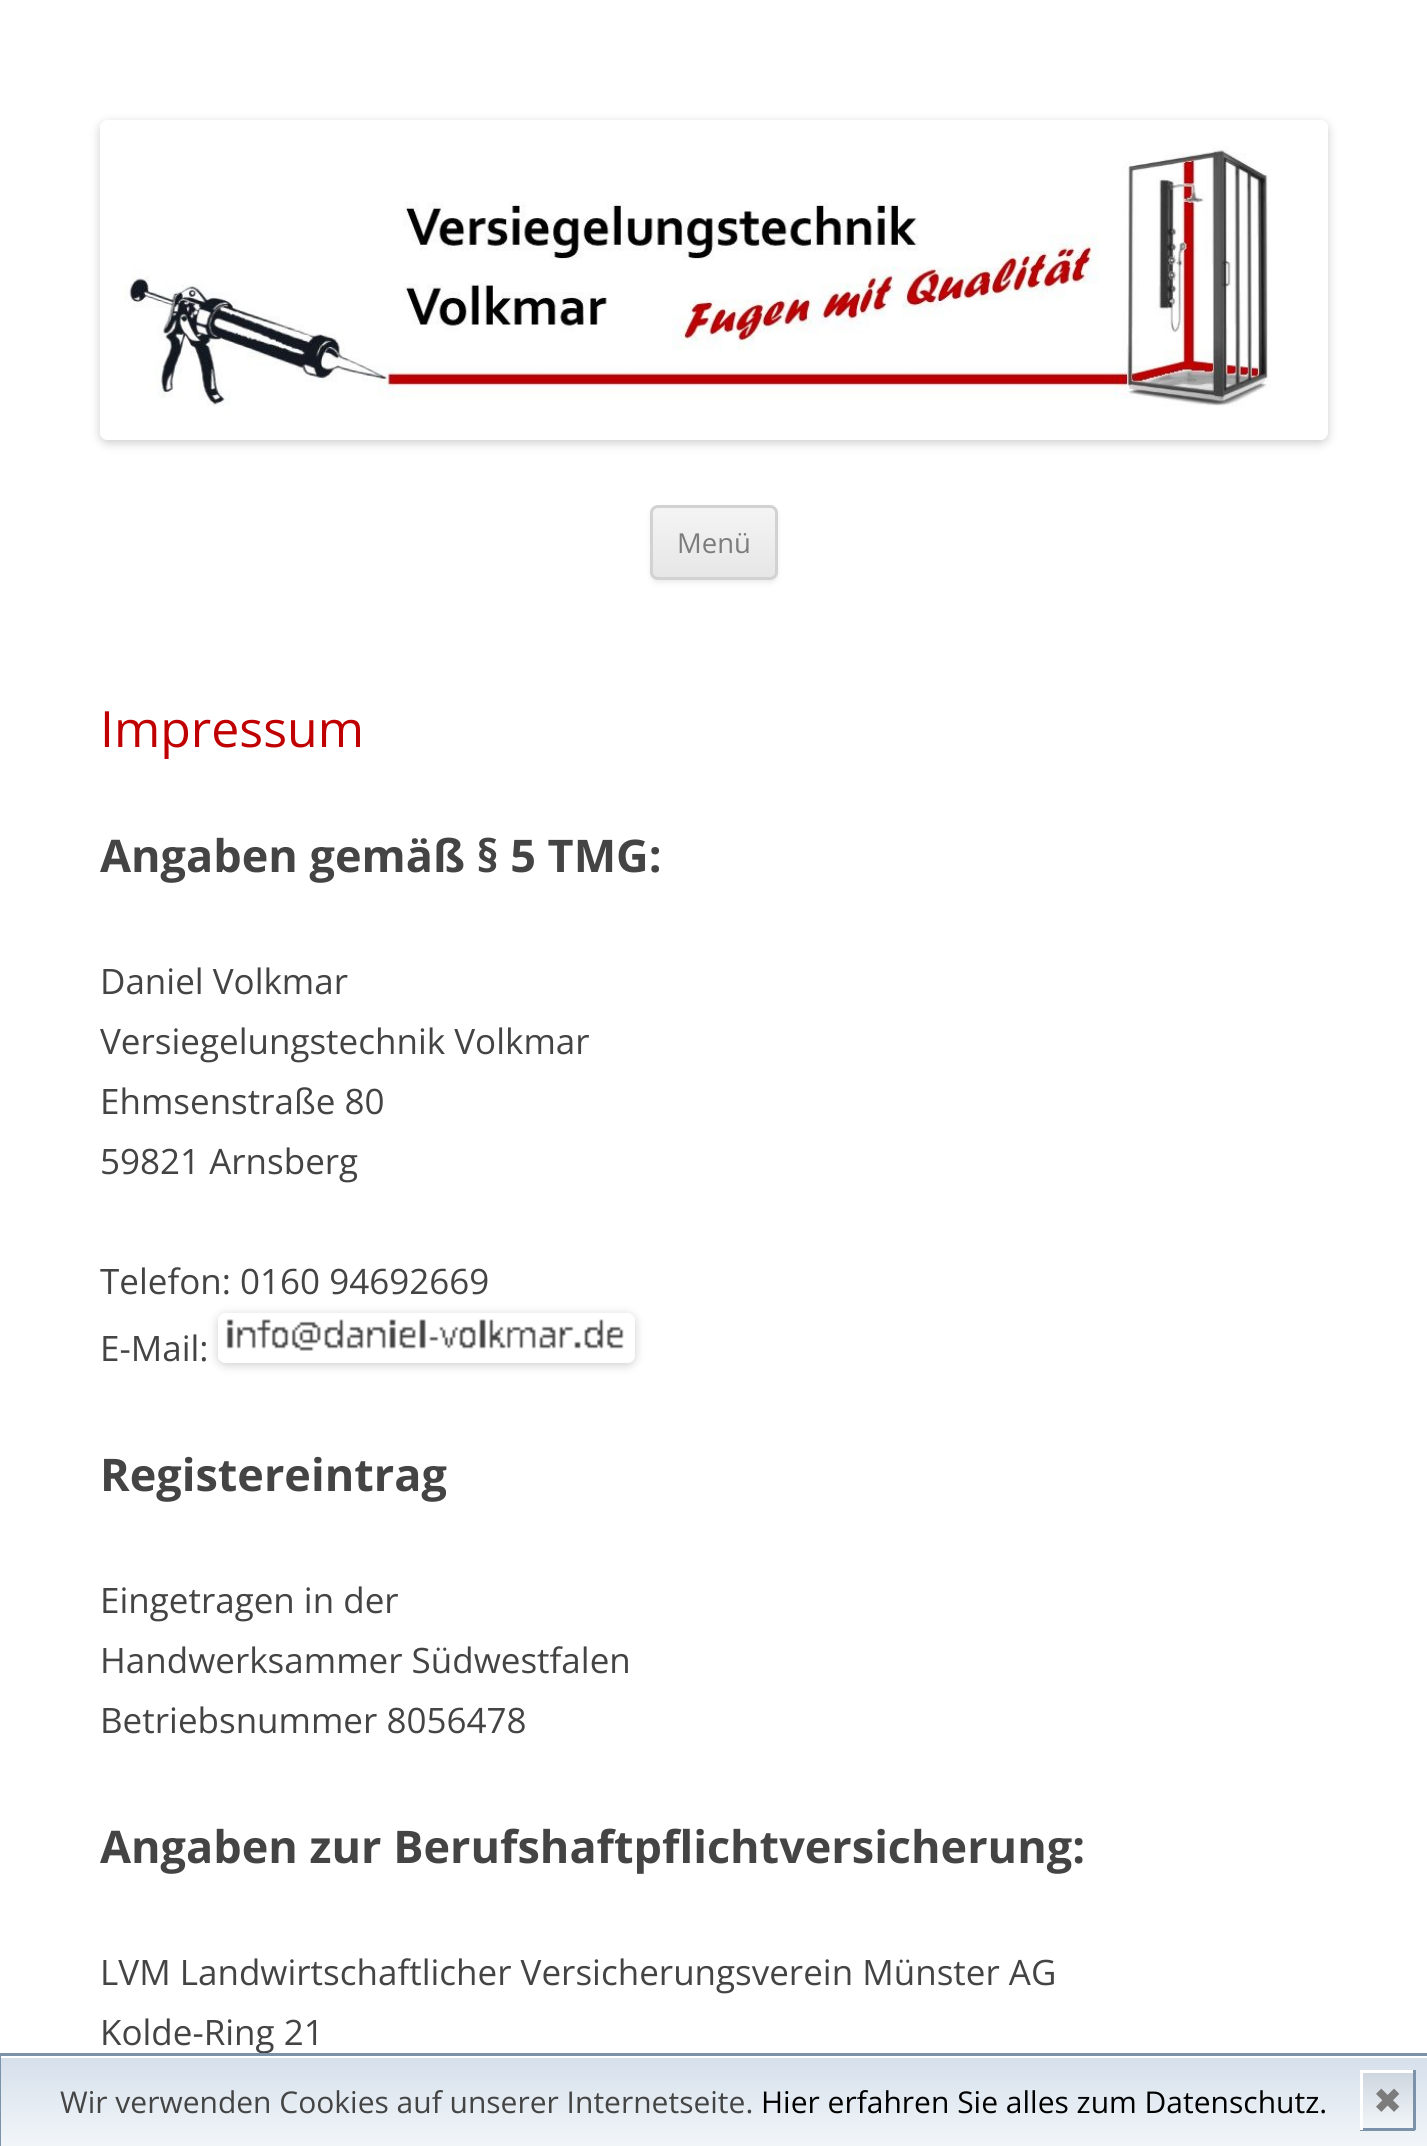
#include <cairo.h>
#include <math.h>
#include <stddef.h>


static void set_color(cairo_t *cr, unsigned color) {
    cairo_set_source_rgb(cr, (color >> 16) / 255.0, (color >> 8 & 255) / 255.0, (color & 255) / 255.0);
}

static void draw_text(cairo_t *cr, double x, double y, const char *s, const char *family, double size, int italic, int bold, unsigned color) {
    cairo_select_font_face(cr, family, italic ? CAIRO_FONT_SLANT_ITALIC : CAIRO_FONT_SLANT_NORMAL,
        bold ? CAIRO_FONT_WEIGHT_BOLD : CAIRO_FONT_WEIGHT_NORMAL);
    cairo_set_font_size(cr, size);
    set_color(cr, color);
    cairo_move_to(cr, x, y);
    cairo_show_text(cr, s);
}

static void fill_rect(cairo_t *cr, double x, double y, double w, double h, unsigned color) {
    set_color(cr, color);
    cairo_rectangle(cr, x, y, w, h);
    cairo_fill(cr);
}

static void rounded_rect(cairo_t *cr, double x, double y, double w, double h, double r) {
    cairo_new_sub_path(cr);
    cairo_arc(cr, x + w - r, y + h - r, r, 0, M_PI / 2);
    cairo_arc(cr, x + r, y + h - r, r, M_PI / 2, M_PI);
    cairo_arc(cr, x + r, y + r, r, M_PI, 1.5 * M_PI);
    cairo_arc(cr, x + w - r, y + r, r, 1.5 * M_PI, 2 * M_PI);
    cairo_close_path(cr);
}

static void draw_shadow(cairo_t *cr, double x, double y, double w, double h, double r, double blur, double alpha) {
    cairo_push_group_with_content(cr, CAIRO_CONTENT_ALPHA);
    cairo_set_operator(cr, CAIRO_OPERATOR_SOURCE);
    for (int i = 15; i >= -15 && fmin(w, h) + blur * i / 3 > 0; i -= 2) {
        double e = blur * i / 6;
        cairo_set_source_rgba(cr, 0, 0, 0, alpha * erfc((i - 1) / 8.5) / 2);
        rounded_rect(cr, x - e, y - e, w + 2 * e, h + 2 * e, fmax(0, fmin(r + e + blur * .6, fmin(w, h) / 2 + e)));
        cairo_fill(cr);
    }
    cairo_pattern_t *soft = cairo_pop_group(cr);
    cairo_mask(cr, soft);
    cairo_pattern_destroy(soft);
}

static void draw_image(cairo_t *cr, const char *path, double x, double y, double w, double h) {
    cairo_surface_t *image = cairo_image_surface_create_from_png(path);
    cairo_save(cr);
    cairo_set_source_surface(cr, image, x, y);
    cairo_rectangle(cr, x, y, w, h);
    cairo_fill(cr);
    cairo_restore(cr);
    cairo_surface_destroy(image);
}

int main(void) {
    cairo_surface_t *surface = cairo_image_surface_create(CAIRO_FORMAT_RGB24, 1427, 2146);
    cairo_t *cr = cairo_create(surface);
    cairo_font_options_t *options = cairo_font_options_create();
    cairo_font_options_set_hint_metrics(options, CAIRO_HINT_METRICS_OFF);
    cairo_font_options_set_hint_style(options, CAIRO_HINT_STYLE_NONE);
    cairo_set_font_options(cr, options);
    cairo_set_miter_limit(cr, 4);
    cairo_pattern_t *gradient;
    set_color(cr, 0xFFFFFF);
    cairo_paint(cr);
    cairo_save(cr);
    cairo_set_fill_rule(cr, CAIRO_FILL_RULE_EVEN_ODD);
    cairo_new_path(cr);
    cairo_move_to(cr, 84, 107);
    cairo_line_to(cr, 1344, 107);
    cairo_line_to(cr, 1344, 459);
    cairo_line_to(cr, 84, 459);
    cairo_close_path(cr);
    cairo_move_to(cr, 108, 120);
    cairo_line_to(cr, 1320, 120);
    cairo_curve_to(cr, 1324.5, 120, 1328, 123.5, 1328, 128);
    cairo_line_to(cr, 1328, 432);
    cairo_curve_to(cr, 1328, 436.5, 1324.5, 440, 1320, 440);
    cairo_line_to(cr, 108, 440);
    cairo_curve_to(cr, 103.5, 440, 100, 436.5, 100, 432);
    cairo_line_to(cr, 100, 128);
    cairo_curve_to(cr, 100, 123.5, 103.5, 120, 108, 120);
    cairo_close_path(cr);
    cairo_clip(cr);
    set_color(cr, 0x000000);
    draw_shadow(cr, 100, 123, 1228, 320, 8, 5, 0.2);
    cairo_restore(cr);
    draw_image(cr, "assets/img1.png", 100, 146, 1226, 294);
    set_color(cr, 0x404040);
    draw_shadow(cr, 650, 508, 128, 75, 8, 2.5, 0.1);
    cairo_save(cr);
    rounded_rect(cr, 650, 505, 128, 75, 8);
    cairo_clip(cr);
    gradient = cairo_pattern_create_linear(714, 508, 714, 578);
    cairo_pattern_add_color_stop_rgba(gradient, 0, 0.957, 0.957, 0.957, 1);
    cairo_pattern_add_color_stop_rgba(gradient, 1, 0.902, 0.902, 0.902, 1);
    cairo_set_source(cr, gradient);
    cairo_pattern_destroy(gradient);
    cairo_rectangle(cr, 650, 508, 128, 70);
    cairo_fill(cr);
    cairo_restore(cr);
    rounded_rect(cr, 651.5, 506.5, 125, 72, 6.5);
    set_color(cr, 0xD2D2D2);
    cairo_set_line_width(cr, 3);
    cairo_stroke(cr);
    draw_text(cr, 677, 553, "Menü", "Open Sans", 27.5, 0, 0, 0x7C7C7C);
    draw_text(cr, 100, 747, "Impressum", "Open Sans", 50, 0, 0, 0xC00000);
    draw_text(cr, 100, 872, "Angaben gemäß § 5 TMG:", "Open Sans", 45, 0, 1, 0x444444);
    draw_text(cr, 100, 994, "Daniel Volkmar", "Open Sans", 35, 0, 0, 0x444444);
    draw_text(cr, 100, 1054, "Versiegelungstechnik Volkmar", "Open Sans", 35, 0, 0, 0x444444);
    draw_text(cr, 100, 1114, "Ehmsenstraße 80", "Open Sans", 35, 0, 0, 0x444444);
    draw_text(cr, 100, 1174, "59821 Arnsberg", "Open Sans", 35, 0, 0, 0x444444);
    draw_text(cr, 100, 1294, "Telefon: 0160 94692669", "Open Sans", 35, 0, 0, 0x444444);
    cairo_save(cr);
    cairo_set_fill_rule(cr, CAIRO_FILL_RULE_EVEN_ODD);
    cairo_new_path(cr);
    cairo_move_to(cr, 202, 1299);
    cairo_line_to(cr, 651, 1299);
    cairo_line_to(cr, 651, 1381);
    cairo_line_to(cr, 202, 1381);
    cairo_close_path(cr);
    cairo_move_to(cr, 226, 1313);
    cairo_line_to(cr, 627, 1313);
    cairo_curve_to(cr, 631.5, 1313, 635, 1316.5, 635, 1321);
    cairo_line_to(cr, 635, 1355);
    cairo_curve_to(cr, 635, 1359.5, 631.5, 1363, 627, 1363);
    cairo_line_to(cr, 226, 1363);
    cairo_curve_to(cr, 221.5, 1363, 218, 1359.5, 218, 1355);
    cairo_line_to(cr, 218, 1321);
    cairo_curve_to(cr, 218, 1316.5, 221.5, 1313, 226, 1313);
    cairo_close_path(cr);
    cairo_clip(cr);
    set_color(cr, 0x000000);
    draw_shadow(cr, 218, 1315, 417, 50, 8, 5, 0.2);
    cairo_restore(cr);
    draw_text(cr, 100, 1361, "E-Mail:", "Open Sans", 35, 0, 0, 0x444444);
    draw_image(cr, "assets/img2.png", 218, 1319, 417, 44);
    draw_text(cr, 100, 1491, "Registereintrag", "Open Sans", 45, 0, 1, 0x444444);
    draw_text(cr, 100, 1613, "Eingetragen in der", "Open Sans", 35, 0, 0, 0x444444);
    draw_text(cr, 100, 1673, "Handwerksammer Südwestfalen", "Open Sans", 35, 0, 0, 0x444444);
    draw_text(cr, 100, 1733, "Betriebsnummer 8056478", "Open Sans", 35, 0, 0, 0x444444);
    draw_text(cr, 100, 1863, "Angaben zur Berufshaftpflichtversicherung:", "Open Sans", 45, 0, 1, 0x444444);
    draw_text(cr, 100, 1985, "LVM Landwirtschaftlicher Versicherungsverein Münster AG", "Open Sans", 35, 0, 0, 0x444444);
    draw_text(cr, 100, 2045, "Kolde-Ring 21", "Open Sans", 35, 0, 0, 0x444444);
    gradient = cairo_pattern_create_linear(714, 2058, 714, 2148);
    cairo_pattern_add_color_stop_rgba(gradient, 0, 0.839, 0.878, 0.922, 1);
    cairo_pattern_add_color_stop_rgba(gradient, 1, 0.949, 0.965, 0.976, 1);
    cairo_set_source(cr, gradient);
    cairo_pattern_destroy(gradient);
    cairo_rectangle(cr, 1, 2058, 1426, 88);
    cairo_fill(cr);
    cairo_rectangle(cr, -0.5, 2054.5, 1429, 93);
    set_color(cr, 0x7B92A9);
    cairo_stroke(cr);
    draw_text(cr, 60, 2113, "Wir verwenden Cookies auf unserer Internetseite.", "Open Sans", 30, 0, 0, 0x444444);
    draw_text(cr, 761, 2113, "Hier erfahren Sie alles zum Datenschutz.", "Open Sans", 30, 0, 0, 0x000000);
    gradient = cairo_pattern_create_linear(1363, 2073, 1363, 2128);
    cairo_pattern_add_color_stop_rgba(gradient, 0, 0.808, 0.839, 0.875, 1);
    cairo_pattern_add_color_stop_rgba(gradient, 1, 0.949, 0.965, 0.976, 1);
    cairo_set_source(cr, gradient);
    cairo_pattern_destroy(gradient);
    cairo_rectangle(cr, 1363, 2073, 50, 55);
    cairo_fill(cr);
    fill_rect(cr, 1360, 2070, 55, 3, 0xFFFFFF);
    fill_rect(cr, 1413, 2070, 3, 60, 0x7B92A9);
    fill_rect(cr, 1360, 2128, 55, 3, 0x7B92A9);
    fill_rect(cr, 1360, 2070, 3, 60, 0xFFFFFF);
    draw_text(cr, 1373, 2113, "✖", "DejaVu Sans", 35, 0, 0, 0x7C7C7C);
    cairo_surface_write_to_png(surface, "output.png");
    cairo_font_options_destroy(options);
    cairo_destroy(cr);
    cairo_surface_destroy(surface);
    return 0;
}
